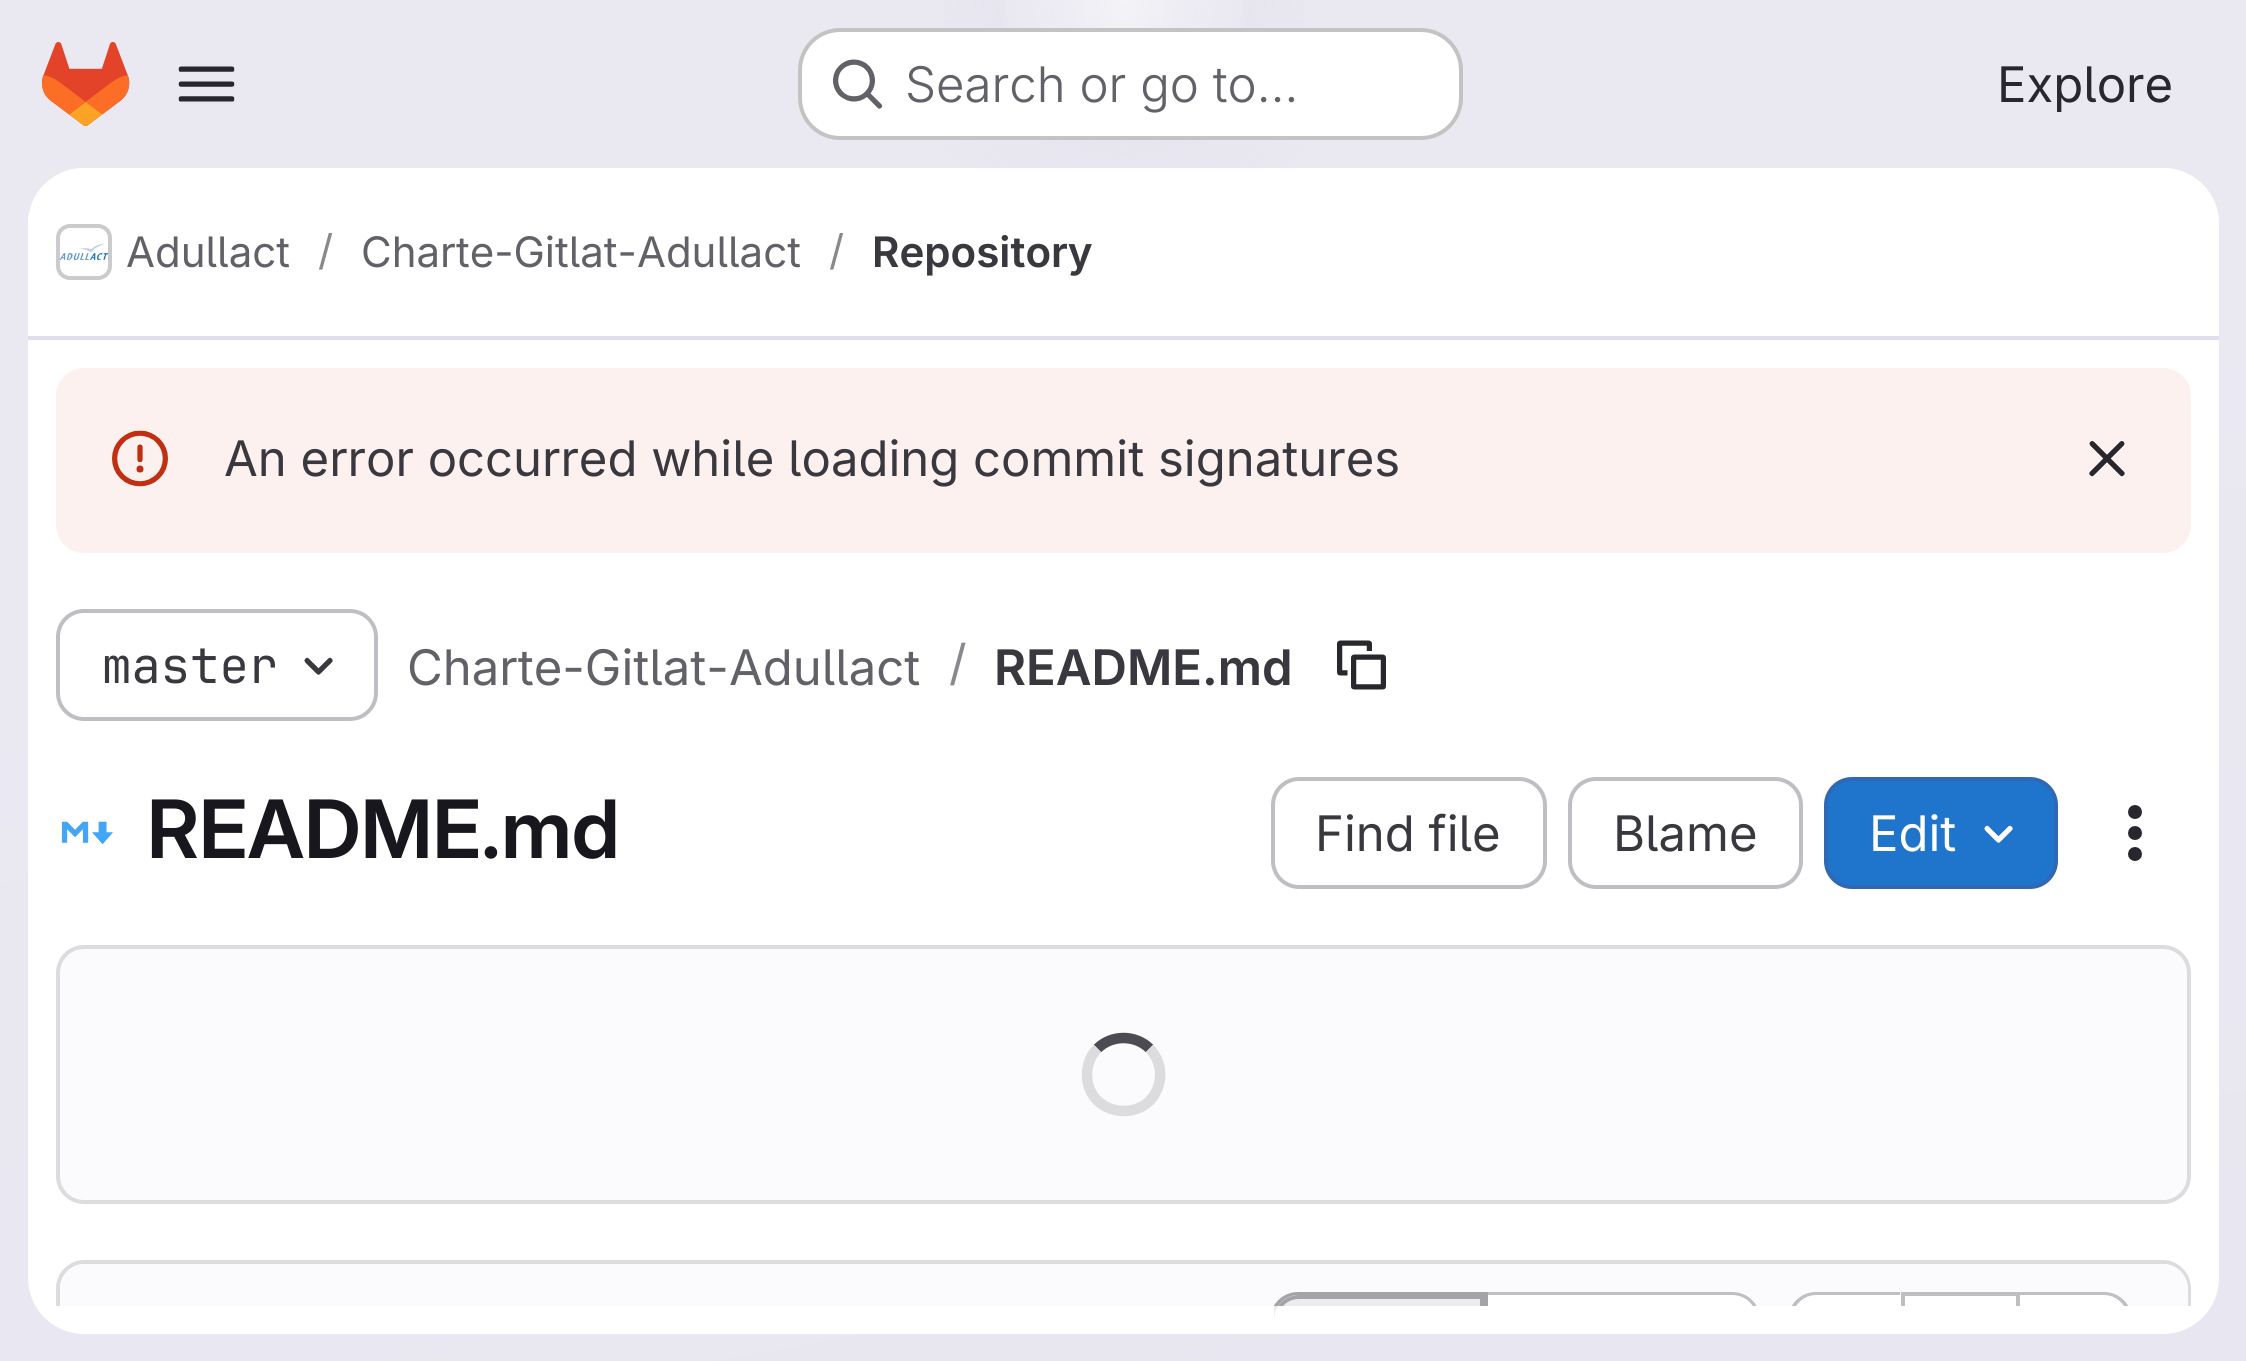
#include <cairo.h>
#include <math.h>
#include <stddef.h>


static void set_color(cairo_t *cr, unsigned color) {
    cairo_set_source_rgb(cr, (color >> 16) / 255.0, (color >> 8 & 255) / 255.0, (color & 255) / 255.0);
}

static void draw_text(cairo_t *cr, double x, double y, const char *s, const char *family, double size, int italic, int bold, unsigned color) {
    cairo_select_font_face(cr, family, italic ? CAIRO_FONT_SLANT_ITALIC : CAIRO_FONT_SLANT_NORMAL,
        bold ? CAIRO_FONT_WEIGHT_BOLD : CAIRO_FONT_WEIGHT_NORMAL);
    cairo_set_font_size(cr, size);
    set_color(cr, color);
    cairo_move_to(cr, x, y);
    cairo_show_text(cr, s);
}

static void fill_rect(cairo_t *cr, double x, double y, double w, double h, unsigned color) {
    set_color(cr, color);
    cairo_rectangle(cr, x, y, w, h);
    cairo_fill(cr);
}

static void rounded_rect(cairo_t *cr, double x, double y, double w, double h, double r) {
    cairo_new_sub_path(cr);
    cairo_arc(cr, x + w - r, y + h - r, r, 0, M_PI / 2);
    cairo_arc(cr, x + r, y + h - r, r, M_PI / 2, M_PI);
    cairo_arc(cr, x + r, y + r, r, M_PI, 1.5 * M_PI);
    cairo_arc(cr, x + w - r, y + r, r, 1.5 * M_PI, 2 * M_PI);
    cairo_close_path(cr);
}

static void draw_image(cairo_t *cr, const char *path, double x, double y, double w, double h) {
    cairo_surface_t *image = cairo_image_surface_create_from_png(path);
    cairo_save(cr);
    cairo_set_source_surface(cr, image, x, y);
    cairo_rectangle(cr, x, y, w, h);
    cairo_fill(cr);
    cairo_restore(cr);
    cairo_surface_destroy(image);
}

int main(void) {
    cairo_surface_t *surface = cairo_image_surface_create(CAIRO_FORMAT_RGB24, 2246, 1361);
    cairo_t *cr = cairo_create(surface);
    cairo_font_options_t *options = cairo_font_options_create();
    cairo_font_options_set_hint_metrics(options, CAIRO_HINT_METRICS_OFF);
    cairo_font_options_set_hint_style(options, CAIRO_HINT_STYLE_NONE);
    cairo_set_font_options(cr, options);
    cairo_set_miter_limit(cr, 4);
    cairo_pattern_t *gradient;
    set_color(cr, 0xFFFFFF);
    cairo_paint(cr);
    gradient = cairo_pattern_create_linear(1274, 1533, 973, -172);
    cairo_pattern_add_color_stop_rgba(gradient, 0, 0.91, 0.902, 0.941, 1);
    cairo_pattern_add_color_stop_rgba(gradient, 0.7, 0.918, 0.914, 0.949, 1);
    cairo_set_source(cr, gradient);
    cairo_pattern_destroy(gradient);
    cairo_rectangle(cr, 0, 0, 2246, 1361);
    cairo_fill(cr);
    gradient = cairo_pattern_create_radial(0, 0, 0, 0, 0, 1);
    cairo_pattern_set_matrix(gradient, &(cairo_matrix_t){1.0 / 1124, 0, 0, 1.0 / 1362, -1.0 * 1124 / 1124, -1.0 * 0 / 1362});
    cairo_pattern_add_color_stop_rgba(gradient, 0, 0.894, 0.886, 0.929, 1);
    cairo_pattern_add_color_stop_rgba(gradient, 0.22, 0.894, 0.886, 0.929, 0);
    cairo_set_source(cr, gradient);
    cairo_pattern_destroy(gradient);
    cairo_rectangle(cr, 944, 0, 360, 168);
    cairo_fill(cr);
    gradient = cairo_pattern_create_radial(0, 0, 0, 0, 0, 1);
    cairo_pattern_set_matrix(gradient, &(cairo_matrix_t){1.0 / 1124, 0, 0, 1.0 / 1362, -1.0 * 1124 / 1124, -1.0 * 0 / 1362});
    cairo_pattern_add_color_stop_rgba(gradient, 0, 0.894, 0.886, 0.925, 1);
    cairo_pattern_add_color_stop_rgba(gradient, 0.16, 0.894, 0.886, 0.925, 0);
    cairo_set_source(cr, gradient);
    cairo_pattern_destroy(gradient);
    cairo_rectangle(cr, 1049, 0, 150, 90);
    cairo_fill(cr);
    gradient = cairo_pattern_create_radial(1124, 0, 0, 1124, 0, 1765);
    cairo_pattern_add_color_stop_rgba(gradient, 0, 1, 1, 1, 0.6);
    cairo_pattern_add_color_stop_rgba(gradient, 0.08, 1, 1, 1, 0);
    cairo_set_source(cr, gradient);
    cairo_pattern_destroy(gradient);
    cairo_rectangle(cr, 1005, 0, 238, 28);
    cairo_fill(cr);
    draw_image(cr, "assets/img1.png", 42, 42, 88, 84);
    draw_image(cr, "assets/img2.png", 178, 66, 57, 36);
    set_color(cr, 0xFFFFFF);
    rounded_rect(cr, 798, 28, 665, 112, 42);
    cairo_fill(cr);
    rounded_rect(cr, 800, 30, 661, 108, 40);
    cairo_set_source_rgba(cr, 0.02, 0.02, 0.024, 0.24);
    cairo_set_line_width(cr, 4);
    cairo_stroke(cr);
    draw_image(cr, "assets/img3.png", 833, 59, 50, 50);
    draw_text(cr, 905, 102, "Search or go to…", "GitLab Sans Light", 49, 0, 0, 0x626168);
    draw_text(cr, 1997, 102, "Explore", "GitLab Sans", 49, 0, 0, 0x28272D);
    set_color(cr, 0xFFFFFF);
    rounded_rect(cr, 28, 168, 2191, 1166, 56);
    cairo_fill(cr);
    cairo_new_path(cr);
    cairo_move_to(cr, 84, 168);
    cairo_line_to(cr, 2163, 168);
    cairo_curve_to(cr, 2194, 168, 2219, 193, 2219, 224);
    cairo_line_to(cr, 2219, 340);
    cairo_line_to(cr, 28, 340);
    cairo_line_to(cr, 28, 224);
    cairo_curve_to(cr, 28, 193, 53, 168, 84, 168);
    cairo_close_path(cr);
    cairo_fill(cr);
    fill_rect(cr, 28, 336, 2191, 4, 0xE1DFEC);
    rounded_rect(cr, 58, 226, 52, 52, 12);
    set_color(cr, 0xDCDCDE);
    cairo_stroke(cr);
    draw_image(cr, "assets/img4.png", 59, 243, 50, 17);
    rounded_rect(cr, 58, 226, 52, 52, 12);
    cairo_set_source_rgba(cr, 0.02, 0.02, 0.024, 0.08);
    cairo_stroke(cr);
    draw_text(cr, 126, 267, "Adullact", "GitLab Sans", 42, 0, 0, 0x626168);
    draw_text(cr, 318, 265, "/", "GitLab Sans", 42, 0, 0, 0x89888D);
    draw_text(cr, 361, 267, "Charte-Gitlat-Adullact", "GitLab Sans", 42, 0, 0, 0x626168);
    draw_text(cr, 829, 265, "/", "GitLab Sans", 42, 0, 0, 0x89888D);
    draw_text(cr, 872, 267, "Repository", "GitLab Sans SemiBold", 42, 0, 0, 0x3A383F);
    set_color(cr, 0xFCF1EF);
    rounded_rect(cr, 56, 368, 2135, 185, 28);
    cairo_fill(cr);
    draw_image(cr, "assets/img5.png", 112, 430, 56, 57);
    draw_text(cr, 224, 476, "An error occurred while loading commit signatures", "GitLab Sans", 49, 0, 0, 0x3A383F);
    draw_image(cr, "assets/img6.png", 2089, 441, 36, 36);
    rounded_rect(cr, 58, 611, 318, 108, 26);
    set_color(cr, 0xBFBFC3);
    cairo_stroke(cr);
    draw_text(cr, 102, 683, "master", "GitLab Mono", 49, 0, 0, 0x3A383F);
    draw_image(cr, "assets/img7.png", 304, 657, 29, 18);
    draw_text(cr, 407, 685, "Charte-Gitlat-Adullact", "GitLab Sans", 49, 0, 0, 0x626168);
    draw_text(cr, 949, 680, "/", "GitLab Sans", 49, 0, 0, 0x89888D);
    draw_text(cr, 994, 685, "README.md", "GitLab Sans SemiBold", 49, 0, 0, 0x3A383F);
    draw_image(cr, "assets/img8.png", 1337, 640, 49, 50);
    draw_image(cr, "assets/img9.png", 61, 821, 52, 24);
    draw_text(cr, 147, 858, "README.md", "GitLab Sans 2 SemiBold", 80.5, 0, 0, 0x18171D);
    rounded_rect(cr, 1273, 779, 272, 108, 26);
    set_color(cr, 0xBFBFC3);
    cairo_stroke(cr);
    draw_text(cr, 1315, 851, "Find file", "GitLab Sans", 49, 0, 0, 0x3A383F);
    rounded_rect(cr, 1570, 779, 231, 108, 26);
    set_color(cr, 0xBFBFC3);
    cairo_stroke(cr);
    draw_text(cr, 1613, 851, "Blame", "GitLab Sans", 49, 0, 0, 0x3A383F);
    set_color(cr, 0x1F75CB);
    rounded_rect(cr, 1826, 779, 230, 108, 26);
    cairo_fill_preserve(cr);
    set_color(cr, 0x2F68B4);
    cairo_stroke(cr);
    draw_text(cr, 1869, 851, "Edit", "GitLab Sans", 49, 0, 0, 0xFFFFFF);
    draw_image(cr, "assets/img10.png", 1984, 825, 29, 18);
    draw_image(cr, "assets/img11.png", 2128, 805, 14, 56);
    set_color(cr, 0xFBFAFD);
    rounded_rect(cr, 58, 947, 2131, 255, 26);
    cairo_fill_preserve(cr);
    set_color(cr, 0xDCDCDE);
    cairo_stroke(cr);
    cairo_new_path(cr);
    cairo_move_to(cr, 1097.5, 1048.5);
    cairo_curve_to(cr, 1111.5, 1034.5, 1135.5, 1034.5, 1149.5, 1048.5);
    set_color(cr, 0x4C4B51);
    cairo_set_line_width(cr, 10.5);
    cairo_stroke(cr);
    cairo_new_path(cr);
    cairo_move_to(cr, 1149.5, 1048.5);
    cairo_curve_to(cr, 1158, 1057, 1162, 1070, 1159.5, 1081.5);
    cairo_curve_to(cr, 1151, 1125, 1087, 1118.5, 1087, 1074.5);
    cairo_curve_to(cr, 1087, 1065, 1090.5, 1055.5, 1097.5, 1048.5);
    set_color(cr, 0xDCDCDE);
    cairo_stroke(cr);
    cairo_save(cr);
    cairo_rectangle(cr, 28, 340, 2191, 966);
    cairo_clip(cr);
    cairo_new_path(cr);
    cairo_move_to(cr, 84, 1260);
    cairo_curve_to(cr, 69, 1260, 56, 1273, 56, 1288);
    cairo_line_to(cr, 56, 1327);
    cairo_line_to(cr, 60, 1329);
    cairo_line_to(cr, 60, 1288);
    cairo_curve_to(cr, 60, 1275, 71, 1264, 84, 1264);
    cairo_line_to(cr, 2163, 1264);
    cairo_curve_to(cr, 2176, 1264, 2187, 1275, 2187, 1288);
    cairo_line_to(cr, 2187, 1329);
    cairo_line_to(cr, 2191, 1327);
    cairo_line_to(cr, 2191, 1288);
    cairo_curve_to(cr, 2191, 1273, 2178, 1260, 2163, 1260);
    cairo_close_path(cr);
    cairo_fill(cr);
    cairo_restore(cr);
    set_color(cr, 0xFBFAFD);
    cairo_new_path(cr);
    cairo_move_to(cr, 85, 1264);
    cairo_line_to(cr, 2163, 1264);
    cairo_curve_to(cr, 2177, 1264, 2188, 1275, 2188, 1289);
    cairo_line_to(cr, 2188, 1306);
    cairo_line_to(cr, 60, 1306);
    cairo_line_to(cr, 60, 1289);
    cairo_curve_to(cr, 60, 1275, 71, 1264, 85, 1264);
    cairo_close_path(cr);
    cairo_fill(cr);
    set_color(cr, 0xECECEF);
    cairo_new_path(cr);
    cairo_move_to(cr, 1299, 1295);
    cairo_line_to(cr, 1484, 1295);
    cairo_line_to(cr, 1484, 1306);
    cairo_line_to(cr, 1274, 1306);
    cairo_line_to(cr, 1274, 1320);
    cairo_curve_to(cr, 1274, 1306, 1285, 1295, 1299, 1295);
    cairo_close_path(cr);
    cairo_fill(cr);
    cairo_save(cr);
    cairo_rectangle(cr, 28, 340, 2191, 966);
    cairo_clip(cr);
    set_color(cr, 0xA4A3A8);
    cairo_new_path(cr);
    cairo_move_to(cr, 1299, 1295);
    cairo_curve_to(cr, 1285, 1295, 1274, 1306, 1274, 1320);
    cairo_line_to(cr, 1274, 1334);
    cairo_line_to(cr, 1278, 1334);
    cairo_line_to(cr, 1278, 1320);
    cairo_curve_to(cr, 1278, 1308, 1287, 1299, 1299, 1299);
    cairo_line_to(cr, 1480, 1299);
    cairo_line_to(cr, 1480, 1334);
    cairo_line_to(cr, 1484, 1334);
    cairo_line_to(cr, 1484, 1295);
    cairo_close_path(cr);
    cairo_fill(cr);
    cairo_new_path(cr);
    cairo_move_to(cr, 1298, 1292);
    cairo_line_to(cr, 1484, 1292);
    cairo_line_to(cr, 1484, 1295);
    cairo_line_to(cr, 1298, 1295);
    cairo_curve_to(cr, 1285, 1295, 1274, 1306, 1274, 1320);
    cairo_line_to(cr, 1274, 1334);
    cairo_line_to(cr, 1270, 1334);
    cairo_line_to(cr, 1270, 1320);
    cairo_curve_to(cr, 1270, 1304, 1283, 1292, 1298, 1292);
    cairo_close_path(cr);
    cairo_fill(cr);
    cairo_restore(cr);
    set_color(cr, 0xFFFFFF);
    cairo_new_path(cr);
    cairo_move_to(cr, 1488, 1295);
    cairo_line_to(cr, 1732, 1295);
    cairo_curve_to(cr, 1746, 1295, 1757, 1306, 1757, 1320);
    cairo_line_to(cr, 1757, 1306);
    cairo_line_to(cr, 1488, 1306);
    cairo_close_path(cr);
    cairo_fill(cr);
    cairo_save(cr);
    cairo_rectangle(cr, 28, 340, 2191, 966);
    cairo_clip(cr);
    set_color(cr, 0xBFBFC3);
    cairo_new_path(cr);
    cairo_move_to(cr, 1488, 1292);
    cairo_line_to(cr, 1732, 1292);
    cairo_curve_to(cr, 1748, 1292, 1760, 1304, 1760, 1320);
    cairo_line_to(cr, 1760, 1334);
    cairo_line_to(cr, 1757, 1334);
    cairo_line_to(cr, 1757, 1320);
    cairo_curve_to(cr, 1757, 1306, 1746, 1295, 1732, 1295);
    cairo_line_to(cr, 1488, 1295);
    cairo_close_path(cr);
    cairo_fill(cr);
    cairo_restore(cr);
    fill_rect(cr, 1484, 1292, 4, 14, 0xA4A3A8);
    set_color(cr, 0xFFFFFF);
    cairo_new_path(cr);
    cairo_move_to(cr, 1817, 1295);
    cairo_line_to(cr, 1901, 1295);
    cairo_line_to(cr, 1901, 1306);
    cairo_line_to(cr, 1792, 1306);
    cairo_line_to(cr, 1792, 1320);
    cairo_curve_to(cr, 1792, 1306, 1803, 1295, 1817, 1295);
    cairo_close_path(cr);
    cairo_fill(cr);
    cairo_save(cr);
    cairo_rectangle(cr, 28, 340, 2191, 966);
    cairo_clip(cr);
    set_color(cr, 0xBFBFC3);
    cairo_new_path(cr);
    cairo_move_to(cr, 1816, 1292);
    cairo_line_to(cr, 1900, 1292);
    cairo_line_to(cr, 1900, 1295);
    cairo_line_to(cr, 1816, 1295);
    cairo_curve_to(cr, 1803, 1295, 1792, 1306, 1792, 1320);
    cairo_line_to(cr, 1792, 1334);
    cairo_line_to(cr, 1788, 1334);
    cairo_line_to(cr, 1788, 1320);
    cairo_curve_to(cr, 1788, 1304, 1801, 1292, 1816, 1292);
    cairo_close_path(cr);
    cairo_fill(cr);
    cairo_restore(cr);
    fill_rect(cr, 1905, 1296, 111, 10, 0xFFFFFF);
    fill_rect(cr, 1904, 1292, 112, 4, 0xBFBFC3);
    fill_rect(cr, 1901, 1292, 4, 14, 0xBFBFC3);
    set_color(cr, 0xFFFFFF);
    cairo_new_path(cr);
    cairo_move_to(cr, 2020, 1295);
    cairo_line_to(cr, 2103, 1295);
    cairo_curve_to(cr, 2117, 1295, 2128, 1306, 2128, 1320);
    cairo_line_to(cr, 2128, 1306);
    cairo_line_to(cr, 2020, 1306);
    cairo_close_path(cr);
    cairo_fill(cr);
    cairo_save(cr);
    cairo_rectangle(cr, 28, 340, 2191, 966);
    cairo_clip(cr);
    set_color(cr, 0xBFBFC3);
    cairo_new_path(cr);
    cairo_move_to(cr, 2020, 1292);
    cairo_line_to(cr, 2104, 1292);
    cairo_curve_to(cr, 2119, 1292, 2132, 1304, 2132, 1320);
    cairo_line_to(cr, 2132, 1334);
    cairo_line_to(cr, 2128, 1334);
    cairo_line_to(cr, 2128, 1320);
    cairo_curve_to(cr, 2128, 1306, 2117, 1295, 2104, 1295);
    cairo_line_to(cr, 2020, 1295);
    cairo_close_path(cr);
    cairo_fill(cr);
    cairo_restore(cr);
    fill_rect(cr, 2016, 1292, 4, 14, 0xBFBFC3);
    cairo_surface_write_to_png(surface, "output.png");
    cairo_font_options_destroy(options);
    cairo_destroy(cr);
    cairo_surface_destroy(surface);
    return 0;
}
